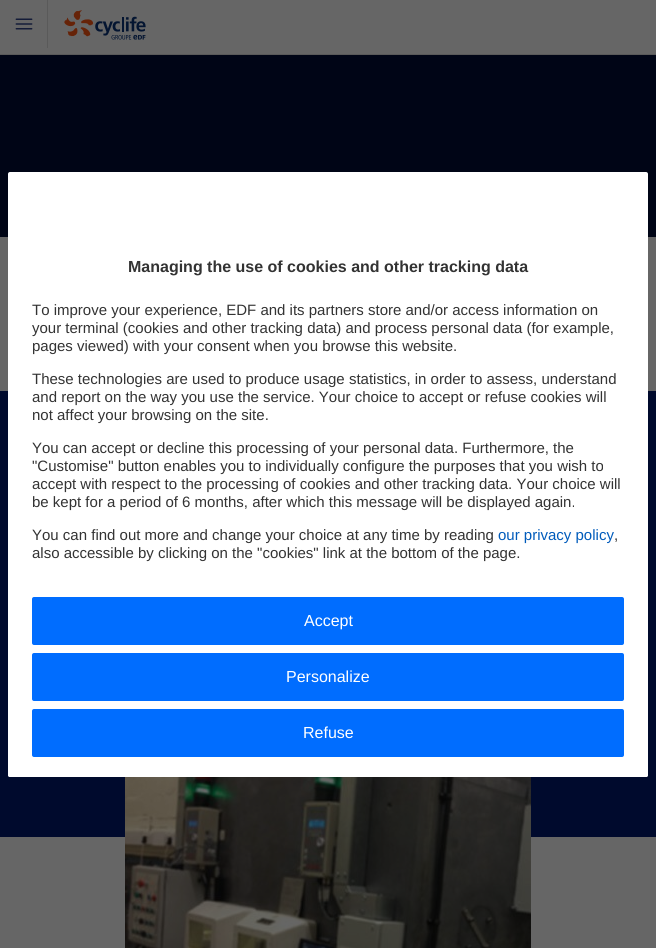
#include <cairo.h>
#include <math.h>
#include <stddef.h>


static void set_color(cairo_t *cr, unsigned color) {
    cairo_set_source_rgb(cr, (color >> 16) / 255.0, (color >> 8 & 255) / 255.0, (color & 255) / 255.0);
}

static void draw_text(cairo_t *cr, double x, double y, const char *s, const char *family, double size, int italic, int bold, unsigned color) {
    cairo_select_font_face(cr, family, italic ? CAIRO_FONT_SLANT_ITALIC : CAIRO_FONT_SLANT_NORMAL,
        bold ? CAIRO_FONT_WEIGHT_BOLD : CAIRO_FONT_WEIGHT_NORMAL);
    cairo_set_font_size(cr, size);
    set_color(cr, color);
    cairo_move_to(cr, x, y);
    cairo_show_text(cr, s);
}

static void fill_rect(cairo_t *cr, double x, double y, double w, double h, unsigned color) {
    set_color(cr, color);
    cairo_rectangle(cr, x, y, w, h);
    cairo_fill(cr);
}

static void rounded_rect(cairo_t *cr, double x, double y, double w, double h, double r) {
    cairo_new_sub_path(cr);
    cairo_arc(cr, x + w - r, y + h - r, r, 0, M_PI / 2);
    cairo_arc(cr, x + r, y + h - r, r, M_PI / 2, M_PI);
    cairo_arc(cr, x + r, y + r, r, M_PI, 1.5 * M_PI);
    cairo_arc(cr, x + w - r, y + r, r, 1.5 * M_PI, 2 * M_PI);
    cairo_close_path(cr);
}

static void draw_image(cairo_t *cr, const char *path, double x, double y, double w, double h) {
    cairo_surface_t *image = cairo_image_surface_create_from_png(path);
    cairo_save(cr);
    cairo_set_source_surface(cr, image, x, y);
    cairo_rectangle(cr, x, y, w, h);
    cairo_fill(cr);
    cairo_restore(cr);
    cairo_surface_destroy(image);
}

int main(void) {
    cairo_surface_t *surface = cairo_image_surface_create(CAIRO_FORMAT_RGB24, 656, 948);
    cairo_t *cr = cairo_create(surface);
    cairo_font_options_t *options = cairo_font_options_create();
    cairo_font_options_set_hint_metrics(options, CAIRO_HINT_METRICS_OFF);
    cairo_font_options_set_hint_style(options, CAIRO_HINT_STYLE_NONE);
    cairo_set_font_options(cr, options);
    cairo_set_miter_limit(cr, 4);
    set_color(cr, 0x666666);
    cairo_paint(cr);
    fill_rect(cr, 0, 54, 656, 1, 0x5A5A5A);
    draw_image(cr, "assets/img1.png", 15, 18, 18, 12);
    fill_rect(cr, 47, 0, 1, 48, 0x5A5A5A);
    draw_image(cr, "assets/img2.png", 64, 10, 82, 30);
    fill_rect(cr, 0, 55, 656, 182, 0x000516);
    fill_rect(cr, 0, 391, 656, 446, 0x000A2D);
    draw_image(cr, "assets/img3.png", 125, 777, 406, 171);
    set_color(cr, 0xFFFFFF);
    rounded_rect(cr, 8, 172, 640, 605, 2);
    cairo_fill(cr);
    draw_text(cr, 128, 272, "Managing the use of cookies and other tracking data", "Liberation Sans", 16, 0, 1, 0x333333);
    draw_text(cr, 32, 315, "To improve your experience, EDF and its partners store and/or access information on", "Liberation Sans", 15, 0, 0, 0x333333);
    draw_text(cr, 32, 333, "your terminal (cookies and other tracking data) and process personal data (for example,", "Liberation Sans", 15, 0, 0, 0x333333);
    draw_text(cr, 32, 351, "pages viewed) with your consent when you browse this website.", "Liberation Sans", 15, 0, 0, 0x333333);
    draw_text(cr, 32, 384, "These technologies are used to produce usage statistics, in order to assess, understand", "Liberation Sans", 15, 0, 0, 0x333333);
    draw_text(cr, 32, 402, "and report on the way you use the service. Your choice to accept or refuse cookies will", "Liberation Sans", 15, 0, 0, 0x333333);
    draw_text(cr, 32, 420, "not affect your browsing on the site.", "Liberation Sans", 15, 0, 0, 0x333333);
    draw_text(cr, 32, 453, "You can accept or decline this processing of your personal data. Furthermore, the", "Liberation Sans", 15, 0, 0, 0x333333);
    draw_text(cr, 32, 471, "\"Customise\" button enables you to individually configure the purposes that you wish to", "Liberation Sans", 15, 0, 0, 0x333333);
    draw_text(cr, 32, 489, "accept with respect to the processing of cookies and other tracking data. Your choice will", "Liberation Sans", 15, 0, 0, 0x333333);
    draw_text(cr, 32, 507, "be kept for a period of 6 months, after which this message will be displayed again.", "Liberation Sans", 15, 0, 0, 0x333333);
    draw_text(cr, 32, 540, "You can find out more and change your choice at any time by reading", "Liberation Sans", 15, 0, 0, 0x333333);
    draw_text(cr, 498, 540, "our privacy policy", "Liberation Sans", 15, 0, 0, 0x005BBB);
    draw_text(cr, 614, 540, ",", "Liberation Sans", 15, 0, 0, 0x333333);
    draw_text(cr, 32, 558, "also accessible by clicking on the \"cookies\" link at the bottom of the page.", "Liberation Sans", 15, 0, 0, 0x333333);
    set_color(cr, 0xFFFFFF);
    rounded_rect(cr, 8, 577, 640, 200, 2);
    cairo_fill(cr);
    set_color(cr, 0x006DFF);
    rounded_rect(cr, 32, 597, 592, 48, 2);
    cairo_fill(cr);
    draw_text(cr, 304, 626, "Accept", "Liberation Sans", 16, 0, 0, 0xFFFFFF);
    set_color(cr, 0x006DFF);
    rounded_rect(cr, 32, 653, 592, 48, 2);
    cairo_fill(cr);
    draw_text(cr, 286, 682, "Personalize", "Liberation Sans", 16, 0, 0, 0xFFFFFF);
    set_color(cr, 0x006DFF);
    rounded_rect(cr, 32, 709, 592, 48, 2);
    cairo_fill(cr);
    draw_text(cr, 303, 738, "Refuse", "Liberation Sans", 16, 0, 0, 0xFFFFFF);
    cairo_surface_write_to_png(surface, "output.png");
    cairo_font_options_destroy(options);
    cairo_destroy(cr);
    cairo_surface_destroy(surface);
    return 0;
}
